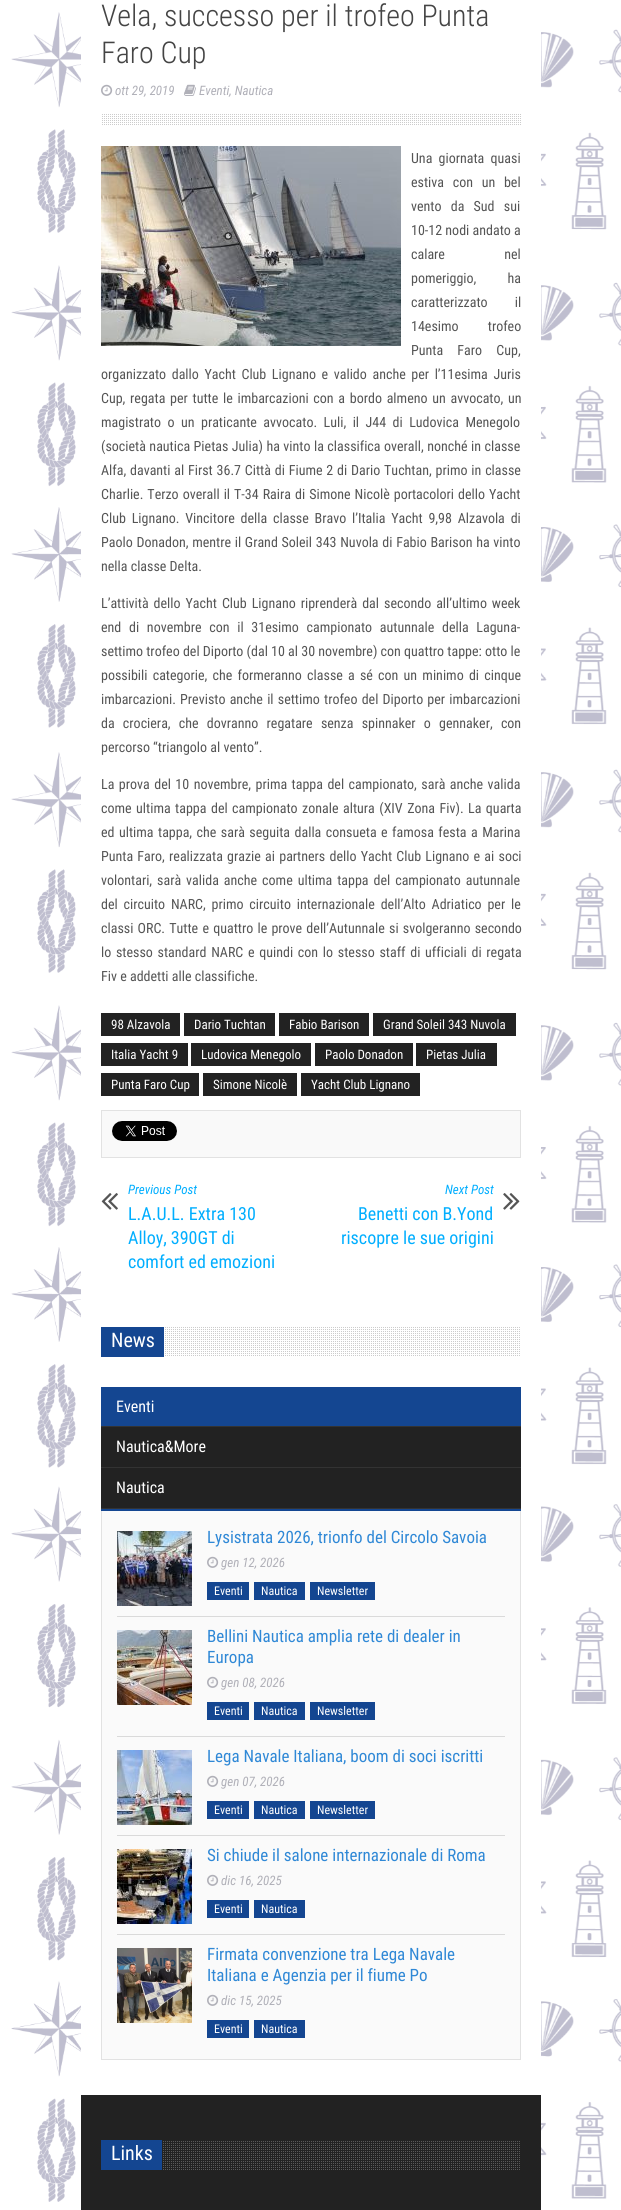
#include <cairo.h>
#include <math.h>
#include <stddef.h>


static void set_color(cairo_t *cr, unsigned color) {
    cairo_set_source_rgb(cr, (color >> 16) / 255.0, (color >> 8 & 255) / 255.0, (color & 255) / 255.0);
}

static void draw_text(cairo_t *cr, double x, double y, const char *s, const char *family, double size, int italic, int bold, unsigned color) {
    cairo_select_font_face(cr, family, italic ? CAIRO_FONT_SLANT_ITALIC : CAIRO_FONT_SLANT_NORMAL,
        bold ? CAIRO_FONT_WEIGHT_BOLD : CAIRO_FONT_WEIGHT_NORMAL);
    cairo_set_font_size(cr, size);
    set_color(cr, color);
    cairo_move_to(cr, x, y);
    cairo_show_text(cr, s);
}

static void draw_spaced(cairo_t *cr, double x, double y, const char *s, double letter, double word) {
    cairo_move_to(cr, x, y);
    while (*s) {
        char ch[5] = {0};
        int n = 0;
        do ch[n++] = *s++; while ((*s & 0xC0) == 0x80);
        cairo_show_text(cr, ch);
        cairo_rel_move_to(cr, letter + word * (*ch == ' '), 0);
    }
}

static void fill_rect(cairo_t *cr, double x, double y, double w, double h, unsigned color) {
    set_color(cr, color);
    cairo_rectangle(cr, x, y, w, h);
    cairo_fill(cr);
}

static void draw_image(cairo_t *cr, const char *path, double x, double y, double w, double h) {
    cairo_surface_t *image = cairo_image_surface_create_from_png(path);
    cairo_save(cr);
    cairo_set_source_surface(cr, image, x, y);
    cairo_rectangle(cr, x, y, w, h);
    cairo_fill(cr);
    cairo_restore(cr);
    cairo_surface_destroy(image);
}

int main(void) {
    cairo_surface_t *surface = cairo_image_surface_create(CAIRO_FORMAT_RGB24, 621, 2210);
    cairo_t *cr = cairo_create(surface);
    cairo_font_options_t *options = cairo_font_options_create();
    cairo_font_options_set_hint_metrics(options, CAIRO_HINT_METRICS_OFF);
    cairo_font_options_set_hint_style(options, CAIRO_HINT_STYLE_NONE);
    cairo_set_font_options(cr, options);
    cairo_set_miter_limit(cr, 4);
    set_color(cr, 0xFFFFFF);
    cairo_paint(cr);
    draw_image(cr, "assets/img1.png", 11, 12, 610, 2190);
    fill_rect(cr, 81, 12, 460, 2069, 0xFFFFFF);
    draw_image(cr, "assets/img2.png", 102, 114, 419, 11);
    draw_text(cr, 101, 26, "Vela, successo per il trofeo Punta", "Roboto Condensed Light", 30, 0, 0, 0x444444);
    draw_text(cr, 101, 63, "Faro Cup", "Roboto Condensed Light", 30, 0, 0, 0x444444);
    draw_image(cr, "assets/img3.png", 101, 84, 12, 12);
    draw_text(cr, 115, 95, "ott 29, 2019", "Roboto Condensed", 13, 1, 0, 0xB0B0B8);
    draw_image(cr, "assets/img4.png", 184, 84, 12, 12);
    draw_text(cr, 199, 95, "Eventi, Nautica", "Roboto Condensed", 13, 1, 0, 0xB0B0B8);
    draw_image(cr, "assets/img5.png", 101, 146, 300, 200);
    cairo_select_font_face(cr, "Roboto Condensed", CAIRO_FONT_SLANT_NORMAL, CAIRO_FONT_WEIGHT_NORMAL);
    cairo_set_font_size(cr, 14);
    set_color(cr, 0x555555);
    draw_spaced(cr, 411, 163, "Una giornata quasi", 0, 3);
    draw_spaced(cr, 411, 187, "estiva con un bel", 0, 5.5);
    draw_spaced(cr, 411, 211, "vento da Sud sui", 0, 6);
    draw_text(cr, 411, 235, "10-12 nodi andato a", "Roboto Condensed", 14, 0, 0, 0x555555);
    draw_spaced(cr, 411, 259, "calare nel", 0, 56);
    draw_spaced(cr, 411, 283, "pomeriggio, ha", 0, 28);
    draw_spaced(cr, 411, 307, "caratterizzato il", 0, 24);
    draw_spaced(cr, 411, 331, "14esimo trofeo", 0, 26);
    draw_spaced(cr, 411, 355, "Punta Faro Cup,", 0, 11);
    draw_spaced(cr, 101, 379, "organizzato dallo Yacht Club Lignano e valido anche per l’11esima Juris", 0, 2.4);
    draw_spaced(cr, 101, 403, "Cup, regata per tutte le imbarcazioni con a bordo almeno un avvocato, un", 0, 1.5);
    draw_spaced(cr, 101, 427, "magistrato o un praticante avvocato. Luli, il J44 di Ludovica Menegolo", 0, 3.25);
    draw_spaced(cr, 101, 451, "(società nautica Pietas Julia) ha vinto la classifica overall, nonché in classe", 0, 0.25);
    draw_spaced(cr, 101, 475, "Alfa, davanti al First 36.7 Città di Fiume 2 di Dario Tuchtan, primo in classe", 0, 0.6);
    draw_spaced(cr, 101, 499, "Charlie. Terzo overall il T-34 Raira di Simone Nicolè portacolori dello Yacht", 0, 0.8);
    draw_spaced(cr, 101, 523, "Club Lignano. Vincitore della classe Bravo l’Italia Yacht 9,98 Alzavola di", 0, 2.6);
    draw_spaced(cr, 101, 547, "Paolo Donadon, mentre il Grand Soleil 343 Nuvola di Fabio Barison ha vinto", 0, 0.5);
    draw_text(cr, 101, 571, "nella classe Delta.", "Roboto Condensed", 14, 0, 0, 0x555555);
    draw_spaced(cr, 101, 608, "L’attività dello Yacht Club Lignano riprenderà dal secondo all’ultimo week", 0, 1.75);
    draw_spaced(cr, 101, 632, "end di novembre con il 31esimo campionato autunnale della Laguna-", 0, 4.5);
    draw_text(cr, 101, 656, "settimo trofeo del Diporto (dal 10 al 30 novembre) con quattro tappe: otto le", "Roboto Condensed", 14, 0, 0, 0x555555);
    draw_spaced(cr, 101, 680, "possibili categorie, che formeranno classe a sé con un minimo di cinque", 0, 2);
    draw_spaced(cr, 101, 704, "imbarcazioni. Previsto anche il settimo trofeo del Diporto per imbarcazioni", 0, 1);
    draw_spaced(cr, 101, 728, "da crociera, che dovranno regatare senza spinnaker o gennaker, con", 0, 5);
    draw_text(cr, 101, 752, "percorso “triangolo al vento”.", "Roboto Condensed", 14, 0, 0, 0x555555);
    draw_spaced(cr, 101, 789, "La prova del 10 novembre, prima tappa del campionato, sarà anche valida", 0, 1.25);
    draw_spaced(cr, 101, 813, "come ultima tappa del campionato zonale altura (XIV Zona Fiv). La quarta", 0, 1.25);
    draw_spaced(cr, 101, 837, "ed ultima tappa, che sarà seguita dalla consueta e famosa festa a Marina", 0, 1.25);
    draw_spaced(cr, 101, 861, "Punta Faro, realizzata grazie ai partners dello Yacht Club Lignano e ai soci", 0, 1);
    draw_spaced(cr, 101, 885, "volontari, sarà valida anche come ultima tappa del campionato autunnale", 0, 1.75);
    draw_spaced(cr, 101, 909, "del circuito NARC, primo circuito internazionale dell’Alto Adriatico per le", 0, 2.6);
    draw_spaced(cr, 101, 933, "classi ORC. Tutte e quattro le prove dell’Autunnale si svolgeranno secondo", 0, 1);
    draw_spaced(cr, 101, 957, "lo stesso standard NARC e quindi con lo stesso staff di ufficiali di regata", 0, 1.5);
    draw_text(cr, 101, 981, "Fiv e addetti alle classifiche.", "Roboto Condensed", 14, 0, 0, 0x555555);
    fill_rect(cr, 101, 1013, 79, 23, 0x222222);
    draw_text(cr, 111, 1029, "98 Alzavola", "Roboto Condensed", 13, 0, 0, 0xFFFFFF);
    fill_rect(cr, 184, 1013, 91, 23, 0x222222);
    draw_text(cr, 194, 1029, "Dario Tuchtan", "Roboto Condensed", 13, 0, 0, 0xFFFFFF);
    fill_rect(cr, 279, 1013, 90, 23, 0x222222);
    draw_text(cr, 289, 1029, "Fabio Barison", "Roboto Condensed", 13, 0, 0, 0xFFFFFF);
    fill_rect(cr, 373, 1013, 143, 23, 0x222222);
    draw_text(cr, 383, 1029, "Grand Soleil 343 Nuvola", "Roboto Condensed", 13, 0, 0, 0xFFFFFF);
    fill_rect(cr, 101, 1043, 87, 23, 0x222222);
    draw_text(cr, 111, 1059, "Italia Yacht 9", "Roboto Condensed", 13, 0, 0, 0xFFFFFF);
    fill_rect(cr, 191, 1043, 120, 23, 0x222222);
    draw_text(cr, 201, 1059, "Ludovica Menegolo", "Roboto Condensed", 13, 0, 0, 0xFFFFFF);
    fill_rect(cr, 315, 1043, 98, 23, 0x222222);
    draw_text(cr, 325, 1059, "Paolo Donadon", "Roboto Condensed", 13, 0, 0, 0xFFFFFF);
    fill_rect(cr, 416, 1043, 81, 23, 0x222222);
    draw_text(cr, 426, 1059, "Pietas Julia", "Roboto Condensed", 13, 0, 0, 0xFFFFFF);
    fill_rect(cr, 101, 1073, 98, 23, 0x222222);
    draw_text(cr, 111, 1089, "Punta Faro Cup", "Roboto Condensed", 13, 0, 0, 0xFFFFFF);
    fill_rect(cr, 203, 1073, 94, 23, 0x222222);
    draw_text(cr, 213, 1089, "Simone Nicolè", "Roboto Condensed", 13, 0, 0, 0xFFFFFF);
    fill_rect(cr, 301, 1073, 119, 23, 0x222222);
    draw_text(cr, 311, 1089, "Yacht Club Lignano", "Roboto Condensed", 13, 0, 0, 0xFFFFFF);
    set_color(cr, 0xF9F9F9);
    cairo_rectangle(cr, 101.5, 1110.5, 419, 47);
    cairo_fill_preserve(cr);
    set_color(cr, 0xE2E2E2);
    cairo_set_line_width(cr, 1);
    cairo_stroke(cr);
    draw_image(cr, "assets/img6.png", 112, 1121, 65, 20);
    draw_image(cr, "assets/img7.png", 101, 1193, 17, 17);
    draw_text(cr, 128, 1194, "Previous Post", "Roboto Condensed", 13, 1, 0, 0x00AEFF);
    draw_text(cr, 128, 1220, "L.A.U.L. Extra 130", "Roboto Condensed", 18, 0, 0, 0x00AEFF);
    draw_text(cr, 128, 1244, "Alloy, 390GT di", "Roboto Condensed", 18, 0, 0, 0x00AEFF);
    draw_text(cr, 128, 1268, "comfort ed emozioni", "Roboto Condensed", 18, 0, 0, 0x00AEFF);
    draw_text(cr, 445, 1194, "Next Post", "Roboto Condensed", 13, 1, 0, 0x00AEFF);
    draw_text(cr, 358, 1220, "Benetti con B.Yond", "Roboto Condensed", 18, 0, 0, 0x00AEFF);
    draw_text(cr, 341, 1244, "riscopre le sue origini", "Roboto Condensed", 18, 0, 0, 0x00AEFF);
    draw_image(cr, "assets/img8.png", 503, 1193, 17, 17);
    draw_image(cr, "assets/img9.png", 165, 1327, 355, 29);
    fill_rect(cr, 101, 1327, 63, 30, 0x144691);
    draw_text(cr, 111, 1347, "News", "Roboto Condensed", 20, 0, 0, 0xFFFFFF);
    fill_rect(cr, 101, 1427, 420, 81, 0x222222);
    fill_rect(cr, 101, 1509, 420, 2, 0x144691);
    fill_rect(cr, 101, 1387, 420, 39, 0x144691);
    fill_rect(cr, 101, 1426, 420, 1, 0x333333);
    draw_text(cr, 116, 1412, "Eventi", "Roboto Condensed", 16, 0, 0, 0xFFFFFF);
    fill_rect(cr, 101, 1467, 420, 1, 0x333333);
    draw_text(cr, 116, 1452, "Nautica&More", "Roboto Condensed", 16, 0, 0, 0xFFFFFF);
    fill_rect(cr, 101, 1508, 420, 1, 0x333333);
    draw_text(cr, 116, 1493, "Nautica", "Roboto Condensed", 16, 0, 0, 0xFFFFFF);
    fill_rect(cr, 102, 1511, 418, 548, 0xFAFAFA);
    fill_rect(cr, 520, 1511, 1, 549, 0xE2E2E2);
    fill_rect(cr, 101, 2059, 420, 1, 0xE2E2E2);
    fill_rect(cr, 101, 1511, 1, 549, 0xE2E2E2);
    fill_rect(cr, 117, 1616, 388, 1, 0xDADADA);
    draw_image(cr, "assets/img10.png", 117, 1531, 75, 75);
    draw_text(cr, 207, 1543, "Lysistrata 2026, trionfo del Circolo Savoia", "Roboto Condensed", 17, 0, 0, 0x2F88D6);
    draw_image(cr, "assets/img11.png", 207, 1556, 12, 12);
    draw_text(cr, 221, 1567, "gen 12, 2026", "Roboto Condensed", 13, 1, 0, 0xB0B0B8);
    fill_rect(cr, 207, 1582, 42, 18, 0x144691);
    draw_text(cr, 214, 1595, "Eventi", "Roboto Condensed", 12, 0, 0, 0xFFFFFF);
    fill_rect(cr, 254, 1582, 51, 18, 0x144691);
    draw_text(cr, 261, 1595, "Nautica", "Roboto Condensed", 12, 0, 0, 0xFFFFFF);
    fill_rect(cr, 310, 1582, 65, 18, 0x144691);
    draw_text(cr, 317, 1595, "Newsletter", "Roboto Condensed", 12, 0, 0, 0xFFFFFF);
    fill_rect(cr, 117, 1736, 388, 1, 0xDADADA);
    draw_image(cr, "assets/img12.png", 117, 1630, 75, 75);
    draw_text(cr, 207, 1642, "Bellini Nautica amplia rete di dealer in", "Roboto Condensed", 17, 0, 0, 0x2F88D6);
    draw_text(cr, 207, 1663, "Europa", "Roboto Condensed", 17, 0, 0, 0x2F88D6);
    draw_image(cr, "assets/img11.png", 207, 1676, 12, 12);
    draw_text(cr, 221, 1687, "gen 08, 2026", "Roboto Condensed", 13, 1, 0, 0xB0B0B8);
    fill_rect(cr, 207, 1702, 42, 18, 0x144691);
    draw_text(cr, 214, 1715, "Eventi", "Roboto Condensed", 12, 0, 0, 0xFFFFFF);
    fill_rect(cr, 254, 1702, 51, 18, 0x144691);
    draw_text(cr, 261, 1715, "Nautica", "Roboto Condensed", 12, 0, 0, 0xFFFFFF);
    fill_rect(cr, 310, 1702, 65, 18, 0x144691);
    draw_text(cr, 317, 1715, "Newsletter", "Roboto Condensed", 12, 0, 0, 0xFFFFFF);
    fill_rect(cr, 117, 1835, 388, 1, 0xDADADA);
    draw_image(cr, "assets/img13.png", 117, 1750, 75, 75);
    draw_text(cr, 207, 1762, "Lega Navale Italiana, boom di soci iscritti", "Roboto Condensed", 17, 0, 0, 0x2F88D6);
    draw_image(cr, "assets/img11.png", 207, 1775, 12, 12);
    draw_text(cr, 221, 1786, "gen 07, 2026", "Roboto Condensed", 13, 1, 0, 0xB0B0B8);
    fill_rect(cr, 207, 1801, 42, 18, 0x144691);
    draw_text(cr, 214, 1814, "Eventi", "Roboto Condensed", 12, 0, 0, 0xFFFFFF);
    fill_rect(cr, 254, 1801, 51, 18, 0x144691);
    draw_text(cr, 261, 1814, "Nautica", "Roboto Condensed", 12, 0, 0, 0xFFFFFF);
    fill_rect(cr, 310, 1801, 65, 18, 0x144691);
    draw_text(cr, 317, 1814, "Newsletter", "Roboto Condensed", 12, 0, 0, 0xFFFFFF);
    fill_rect(cr, 117, 1934, 388, 1, 0xDADADA);
    draw_image(cr, "assets/img14.png", 117, 1849, 75, 75);
    draw_text(cr, 207, 1861, "Si chiude il salone internazionale di Roma", "Roboto Condensed", 17, 0, 0, 0x2F88D6);
    draw_image(cr, "assets/img11.png", 207, 1874, 12, 12);
    draw_text(cr, 221, 1885, "dic 16, 2025", "Roboto Condensed", 13, 1, 0, 0xB0B0B8);
    fill_rect(cr, 207, 1900, 42, 18, 0x144691);
    draw_text(cr, 214, 1913, "Eventi", "Roboto Condensed", 12, 0, 0, 0xFFFFFF);
    fill_rect(cr, 254, 1900, 51, 18, 0x144691);
    draw_text(cr, 261, 1913, "Nautica", "Roboto Condensed", 12, 0, 0, 0xFFFFFF);
    draw_image(cr, "assets/img15.png", 117, 1948, 75, 75);
    draw_text(cr, 207, 1960, "Firmata convenzione tra Lega Navale", "Roboto Condensed", 17, 0, 0, 0x2F88D6);
    draw_text(cr, 207, 1981, "Italiana e Agenzia per il fiume Po", "Roboto Condensed", 17, 0, 0, 0x2F88D6);
    draw_image(cr, "assets/img11.png", 207, 1994, 12, 12);
    draw_text(cr, 221, 2005, "dic 15, 2025", "Roboto Condensed", 13, 1, 0, 0xB0B0B8);
    fill_rect(cr, 207, 2020, 42, 18, 0x144691);
    draw_text(cr, 214, 2033, "Eventi", "Roboto Condensed", 12, 0, 0, 0xFFFFFF);
    fill_rect(cr, 254, 2020, 51, 18, 0x144691);
    draw_text(cr, 261, 2033, "Nautica", "Roboto Condensed", 12, 0, 0, 0xFFFFFF);
    fill_rect(cr, 81, 2095, 460, 115, 0x222222);
    draw_image(cr, "assets/img16.png", 163, 2141, 357, 29);
    fill_rect(cr, 101, 2140, 61, 30, 0x144691);
    draw_text(cr, 111, 2160, "Links", "Roboto Condensed", 20, 0, 0, 0xFFFFFF);
    cairo_surface_write_to_png(surface, "output.png");
    cairo_font_options_destroy(options);
    cairo_destroy(cr);
    cairo_surface_destroy(surface);
    return 0;
}
